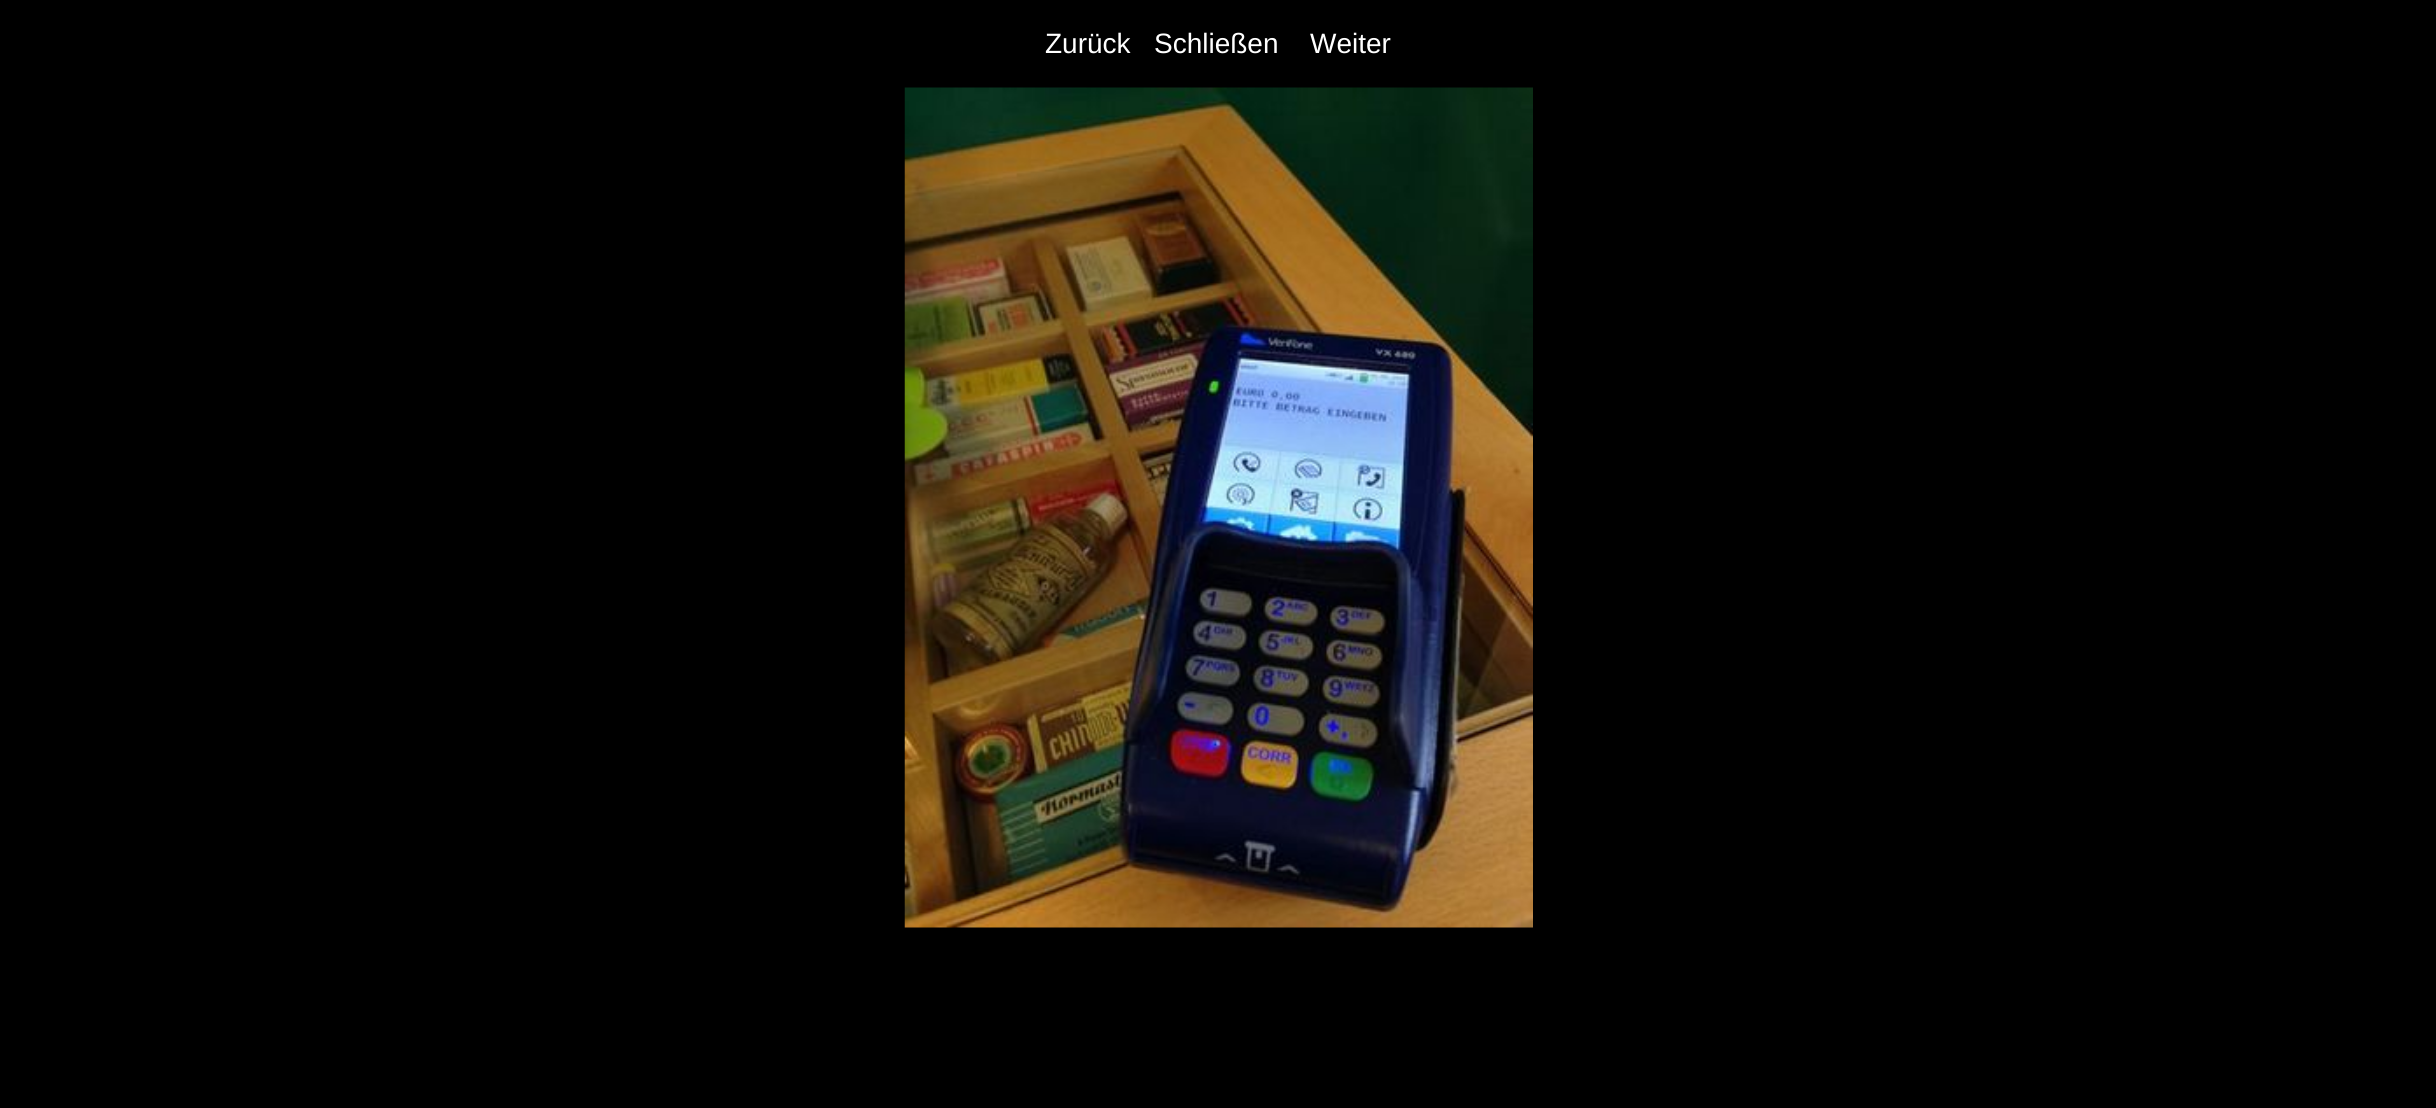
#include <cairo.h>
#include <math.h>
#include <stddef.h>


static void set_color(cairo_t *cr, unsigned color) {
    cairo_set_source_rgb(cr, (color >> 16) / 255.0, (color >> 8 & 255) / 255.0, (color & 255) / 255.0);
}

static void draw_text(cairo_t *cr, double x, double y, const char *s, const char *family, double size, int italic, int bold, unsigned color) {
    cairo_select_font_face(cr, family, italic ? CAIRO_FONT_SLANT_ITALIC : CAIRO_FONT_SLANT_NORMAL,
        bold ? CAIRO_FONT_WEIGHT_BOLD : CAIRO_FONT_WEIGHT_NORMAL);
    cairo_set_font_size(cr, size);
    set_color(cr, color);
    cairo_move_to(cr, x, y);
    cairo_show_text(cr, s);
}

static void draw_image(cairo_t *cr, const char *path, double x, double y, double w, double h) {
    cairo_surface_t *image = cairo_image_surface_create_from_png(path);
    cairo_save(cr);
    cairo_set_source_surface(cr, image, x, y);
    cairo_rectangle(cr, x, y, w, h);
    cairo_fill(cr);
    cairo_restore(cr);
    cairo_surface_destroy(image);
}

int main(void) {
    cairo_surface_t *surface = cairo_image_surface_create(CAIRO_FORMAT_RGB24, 2436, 1108);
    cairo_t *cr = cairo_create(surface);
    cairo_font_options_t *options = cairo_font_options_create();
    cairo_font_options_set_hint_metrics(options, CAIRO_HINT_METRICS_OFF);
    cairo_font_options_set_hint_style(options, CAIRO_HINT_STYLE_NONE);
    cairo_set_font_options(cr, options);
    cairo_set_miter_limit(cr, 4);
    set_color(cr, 0x000000);
    cairo_paint(cr);
    draw_text(cr, 1045, 53, "Zurück", "Liberation Sans", 28, 0, 0, 0xFFFFFF);
    draw_text(cr, 1154, 53, "Schließen", "Liberation Sans", 28, 0, 0, 0xFFFFFF);
    draw_text(cr, 1310, 53, "Weiter", "Liberation Sans", 28, 0, 0, 0xFFFFFF);
    draw_image(cr, "assets/img1.png", 904, 87, 629, 841);
    cairo_surface_write_to_png(surface, "output.png");
    cairo_font_options_destroy(options);
    cairo_destroy(cr);
    cairo_surface_destroy(surface);
    return 0;
}
